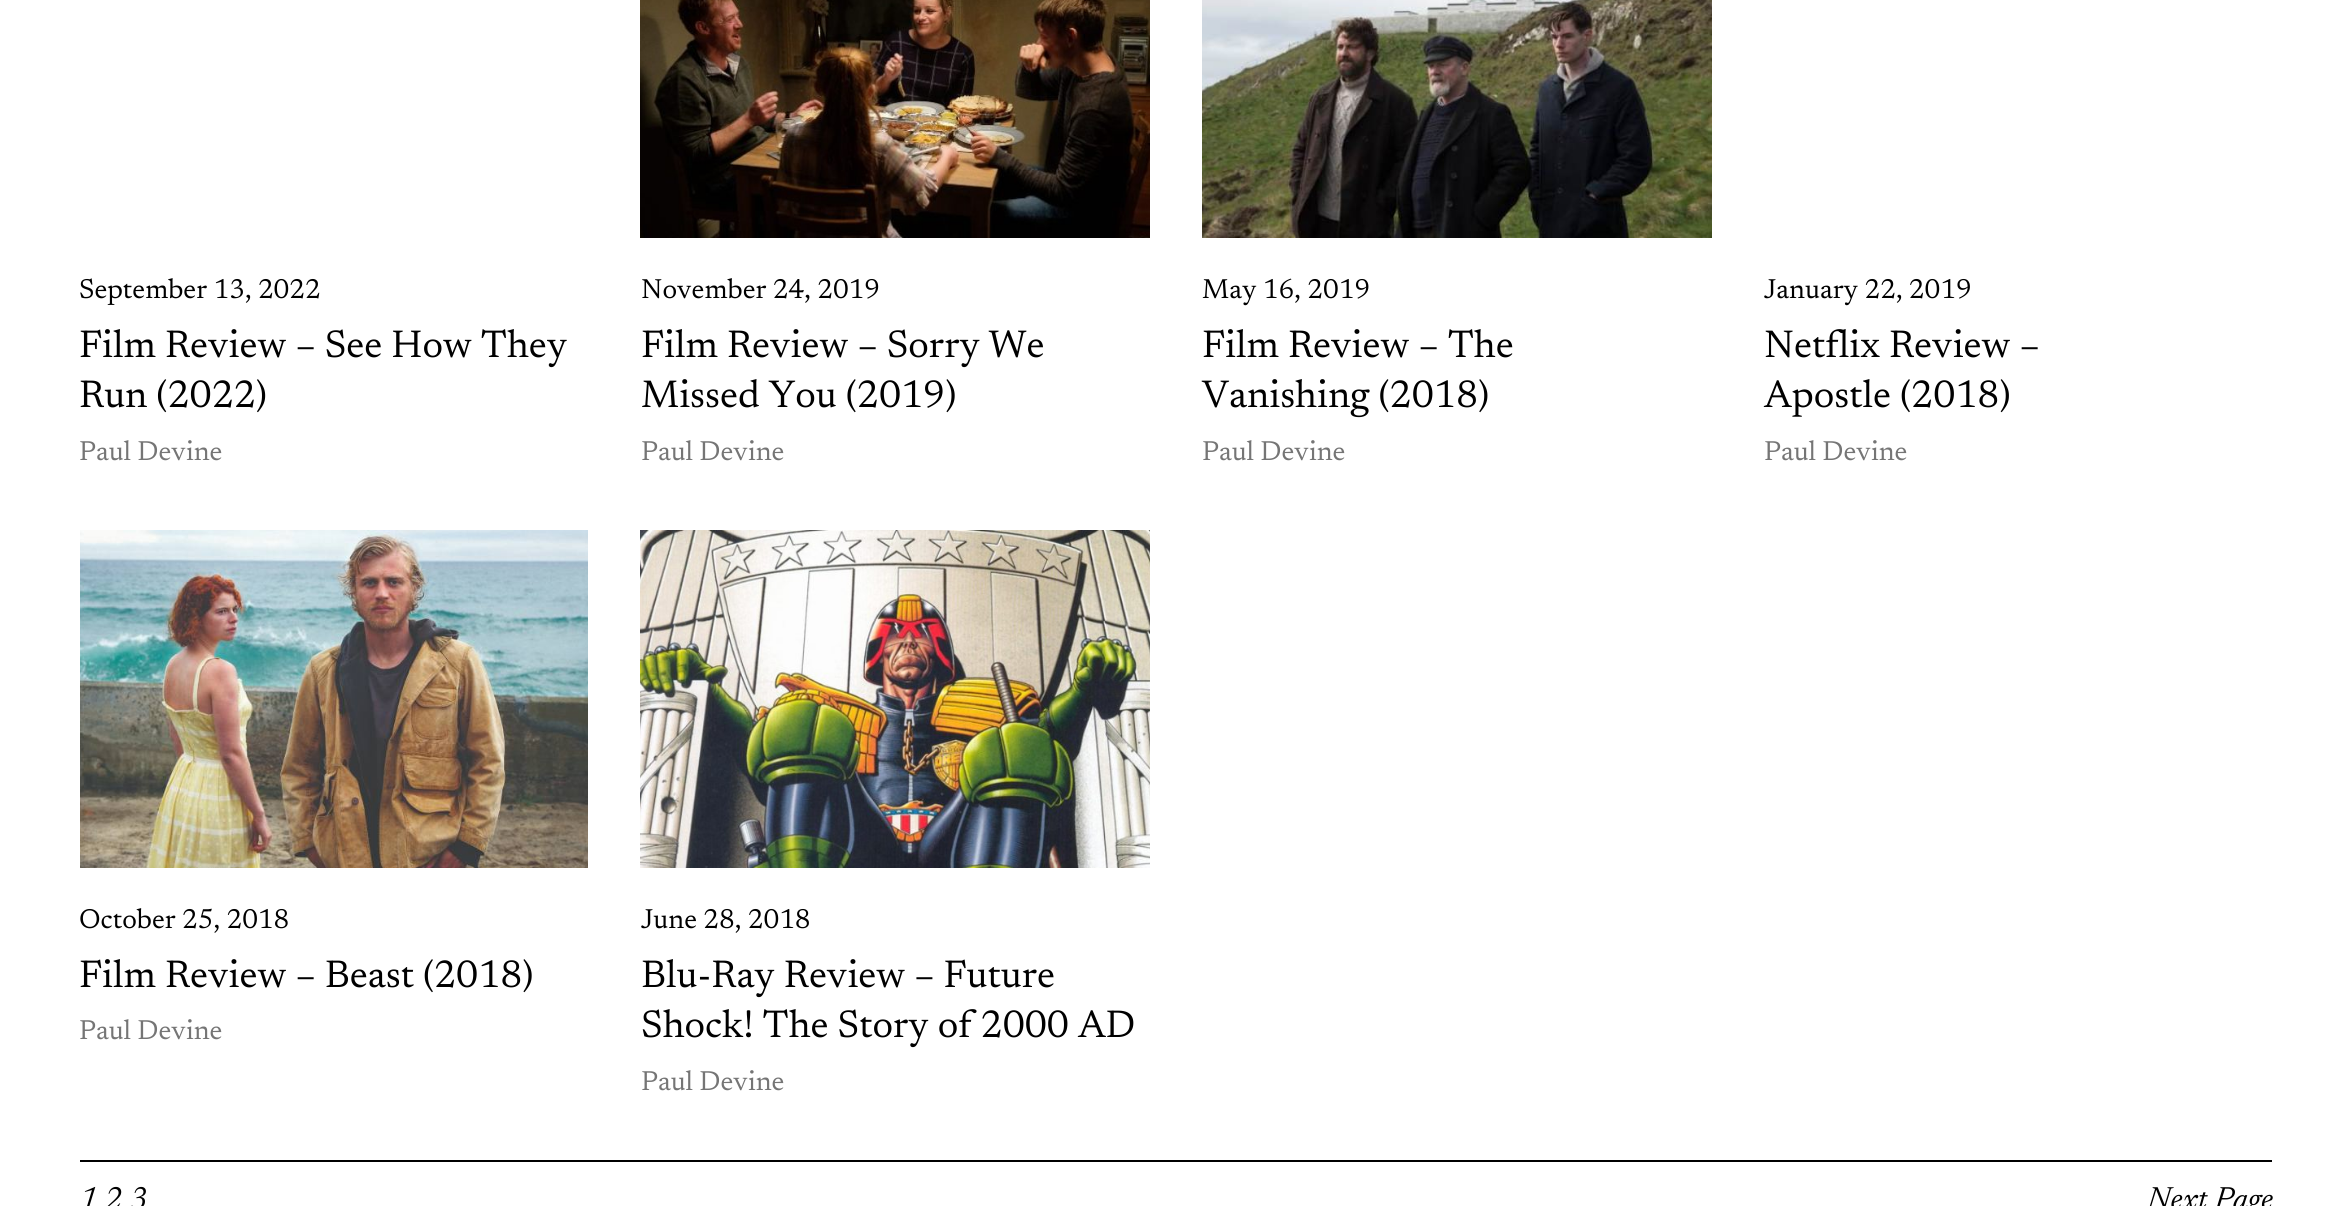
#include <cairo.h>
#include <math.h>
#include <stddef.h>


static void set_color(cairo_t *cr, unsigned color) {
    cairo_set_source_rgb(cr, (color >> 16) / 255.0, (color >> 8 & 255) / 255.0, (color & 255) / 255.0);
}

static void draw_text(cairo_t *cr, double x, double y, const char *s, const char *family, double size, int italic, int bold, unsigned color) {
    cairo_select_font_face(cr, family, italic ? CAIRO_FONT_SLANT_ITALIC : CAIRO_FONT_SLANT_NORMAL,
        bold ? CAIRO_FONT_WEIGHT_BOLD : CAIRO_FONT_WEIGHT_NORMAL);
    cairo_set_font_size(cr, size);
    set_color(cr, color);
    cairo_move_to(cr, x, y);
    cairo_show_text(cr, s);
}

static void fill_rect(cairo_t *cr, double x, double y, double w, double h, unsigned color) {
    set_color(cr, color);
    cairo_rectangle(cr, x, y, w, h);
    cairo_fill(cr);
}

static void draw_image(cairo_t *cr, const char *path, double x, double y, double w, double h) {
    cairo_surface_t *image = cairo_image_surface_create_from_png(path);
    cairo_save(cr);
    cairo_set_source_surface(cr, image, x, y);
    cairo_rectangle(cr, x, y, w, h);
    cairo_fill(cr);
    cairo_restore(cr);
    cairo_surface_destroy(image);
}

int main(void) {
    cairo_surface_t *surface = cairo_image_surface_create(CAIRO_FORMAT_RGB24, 2351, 1206);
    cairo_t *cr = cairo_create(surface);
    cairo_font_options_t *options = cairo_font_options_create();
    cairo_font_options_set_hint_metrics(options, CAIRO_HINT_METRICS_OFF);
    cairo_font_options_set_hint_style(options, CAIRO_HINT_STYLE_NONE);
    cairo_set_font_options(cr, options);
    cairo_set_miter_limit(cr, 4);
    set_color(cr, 0xFFFFFF);
    cairo_paint(cr);
    draw_text(cr, 79, 298, "September 13, 2022", "Newsreader", 27.75, 0, 0, 0x000000);
    draw_text(cr, 79, 357, "Film Review – See How They", "Newsreader", 39, 0, 0, 0x000000);
    draw_text(cr, 79, 407, "Run (2022)", "Newsreader", 39, 0, 0, 0x000000);
    draw_text(cr, 79, 460, "Paul Devine", "Newsreader", 27.75, 0, 0, 0x757575);
    draw_image(cr, "assets/img1.png", 640, 0, 510, 238);
    draw_text(cr, 641, 298, "November 24, 2019", "Newsreader", 27.75, 0, 0, 0x000000);
    draw_text(cr, 641, 357, "Film Review – Sorry We", "Newsreader", 39, 0, 0, 0x000000);
    draw_text(cr, 641, 407, "Missed You (2019)", "Newsreader", 39, 0, 0, 0x000000);
    draw_text(cr, 641, 460, "Paul Devine", "Newsreader", 27.75, 0, 0, 0x757575);
    draw_image(cr, "assets/img2.png", 1202, 0, 510, 238);
    draw_text(cr, 1202, 298, "May 16, 2019", "Newsreader", 27.75, 0, 0, 0x000000);
    draw_text(cr, 1202, 357, "Film Review – The", "Newsreader", 39, 0, 0, 0x000000);
    draw_text(cr, 1202, 407, "Vanishing (2018)", "Newsreader", 39, 0, 0, 0x000000);
    draw_text(cr, 1202, 460, "Paul Devine", "Newsreader", 27.75, 0, 0, 0x757575);
    draw_text(cr, 1764, 298, "January 22, 2019", "Newsreader", 27.75, 0, 0, 0x000000);
    draw_text(cr, 1764, 357, "Netflix Review –", "Newsreader", 39, 0, 0, 0x000000);
    draw_text(cr, 1764, 407, "Apostle (2018)", "Newsreader", 39, 0, 0, 0x000000);
    draw_text(cr, 1764, 460, "Paul Devine", "Newsreader", 27.75, 0, 0, 0x757575);
    draw_image(cr, "assets/img3.png", 80, 530, 508, 338);
    draw_text(cr, 79, 928, "October 25, 2018", "Newsreader", 27.75, 0, 0, 0x000000);
    draw_text(cr, 79, 987, "Film Review – Beast (2018)", "Newsreader", 39, 0, 0, 0x000000);
    draw_text(cr, 79, 1039, "Paul Devine", "Newsreader", 27.75, 0, 0, 0x757575);
    draw_image(cr, "assets/img4.png", 640, 530, 510, 338);
    draw_text(cr, 641, 928, "June 28, 2018", "Newsreader", 27.75, 0, 0, 0x000000);
    draw_text(cr, 641, 987, "Blu-Ray Review – Future", "Newsreader", 39, 0, 0, 0x000000);
    draw_text(cr, 641, 1037, "Shock! The Story of 2000 AD", "Newsreader", 39, 0, 0, 0x000000);
    draw_text(cr, 641, 1090, "Paul Devine", "Newsreader", 27.75, 0, 0, 0x757575);
    fill_rect(cr, 80, 1160, 2192, 2, 0x000000);
    draw_text(cr, 79, 1209, "1 2 3", "Newsreader", 32.5, 1, 0, 0x000000);
    draw_text(cr, 2147, 1209, "Next Page", "Newsreader", 32.5, 1, 0, 0x000000);
    cairo_surface_write_to_png(surface, "output.png");
    cairo_font_options_destroy(options);
    cairo_destroy(cr);
    cairo_surface_destroy(surface);
    return 0;
}
